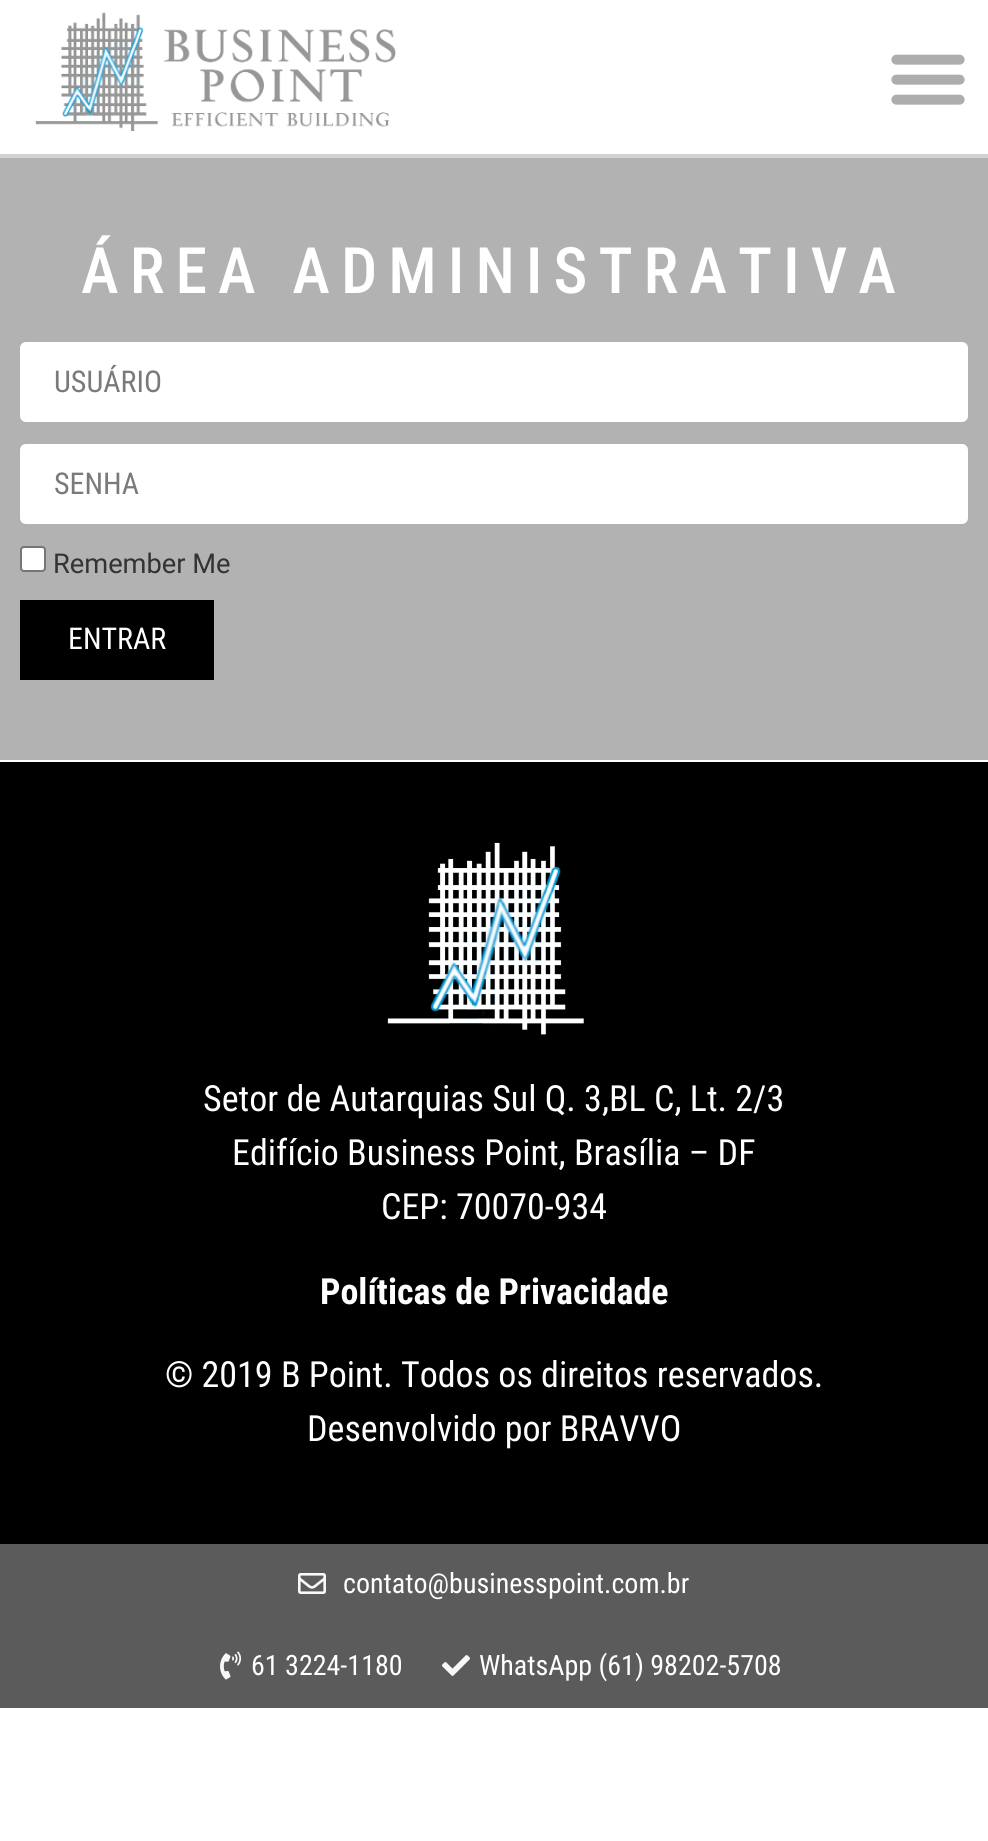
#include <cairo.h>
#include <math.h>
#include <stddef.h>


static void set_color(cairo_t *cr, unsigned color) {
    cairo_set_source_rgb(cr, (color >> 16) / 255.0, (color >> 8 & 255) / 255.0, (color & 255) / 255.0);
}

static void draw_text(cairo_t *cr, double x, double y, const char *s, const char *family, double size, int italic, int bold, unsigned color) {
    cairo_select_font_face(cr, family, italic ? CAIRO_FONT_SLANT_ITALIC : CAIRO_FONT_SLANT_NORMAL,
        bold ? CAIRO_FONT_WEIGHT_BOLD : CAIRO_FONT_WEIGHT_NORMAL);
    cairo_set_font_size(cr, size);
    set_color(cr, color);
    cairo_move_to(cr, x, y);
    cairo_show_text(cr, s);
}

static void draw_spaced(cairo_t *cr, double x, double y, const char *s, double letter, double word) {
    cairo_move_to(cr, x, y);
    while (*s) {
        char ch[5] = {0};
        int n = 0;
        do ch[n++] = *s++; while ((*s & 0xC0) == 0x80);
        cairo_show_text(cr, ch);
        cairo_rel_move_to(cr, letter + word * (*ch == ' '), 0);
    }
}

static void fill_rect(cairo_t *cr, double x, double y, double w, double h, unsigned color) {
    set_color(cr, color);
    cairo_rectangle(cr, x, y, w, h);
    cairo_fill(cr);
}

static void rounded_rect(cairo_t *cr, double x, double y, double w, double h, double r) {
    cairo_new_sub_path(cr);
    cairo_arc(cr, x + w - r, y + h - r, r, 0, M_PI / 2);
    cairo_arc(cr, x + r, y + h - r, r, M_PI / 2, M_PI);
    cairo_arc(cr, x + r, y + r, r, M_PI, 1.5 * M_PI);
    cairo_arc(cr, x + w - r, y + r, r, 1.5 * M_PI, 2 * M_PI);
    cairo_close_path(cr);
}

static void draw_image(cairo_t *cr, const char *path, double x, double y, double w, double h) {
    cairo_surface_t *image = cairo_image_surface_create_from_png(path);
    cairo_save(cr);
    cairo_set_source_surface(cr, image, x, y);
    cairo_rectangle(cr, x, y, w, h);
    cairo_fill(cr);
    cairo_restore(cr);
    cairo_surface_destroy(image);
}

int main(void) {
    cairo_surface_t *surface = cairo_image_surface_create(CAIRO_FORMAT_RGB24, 988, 1841);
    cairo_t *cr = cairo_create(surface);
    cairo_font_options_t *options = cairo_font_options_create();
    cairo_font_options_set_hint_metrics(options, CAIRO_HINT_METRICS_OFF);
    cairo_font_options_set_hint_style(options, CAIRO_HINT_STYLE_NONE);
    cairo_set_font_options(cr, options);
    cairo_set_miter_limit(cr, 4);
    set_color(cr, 0xFFFFFF);
    cairo_paint(cr);
    fill_rect(cr, 0, 154, 988, 4, 0xD3D3D3);
    draw_image(cr, "assets/img1.png", 35, 12, 361, 119);
    draw_image(cr, "assets/img2.png", 891, 54, 74, 51);
    fill_rect(cr, 0, 158, 988, 602, 0xB2B2B2);
    cairo_select_font_face(cr, "Roboto Condensed Medium", CAIRO_FONT_SLANT_NORMAL, CAIRO_FONT_WEIGHT_NORMAL);
    cairo_set_font_size(cr, 64);
    set_color(cr, 0xFFFFFF);
    draw_spaced(cr, 81, 293, "ÁREA ADMINISTRATIVA", 11, 0);
    rounded_rect(cr, 21, 343, 946, 78, 5);
    cairo_fill_preserve(cr);
    cairo_stroke(cr);
    draw_text(cr, 54, 392, "USUÁRIO", "Roboto Condensed", 30, 0, 0, 0x797A7C);
    set_color(cr, 0xFFFFFF);
    rounded_rect(cr, 21, 445, 946, 78, 5);
    cairo_fill_preserve(cr);
    cairo_stroke(cr);
    draw_text(cr, 54, 494, "SENHA", "Roboto Condensed", 30, 0, 0, 0x797A7C);
    set_color(cr, 0xFFFFFF);
    rounded_rect(cr, 21, 547, 24, 24, 3);
    cairo_fill_preserve(cr);
    set_color(cr, 0x767676);
    cairo_stroke(cr);
    draw_text(cr, 53, 573, "Remember Me", "Roboto", 27.25, 0, 0, 0x333333);
    fill_rect(cr, 20, 600, 194, 80, 0x000000);
    draw_text(cr, 68, 649, "ENTRAR", "Roboto Condensed", 30, 0, 0, 0xFFFFFF);
    fill_rect(cr, 0, 762, 988, 782, 0x000000);
    draw_image(cr, "assets/img3.png", 387, 842, 197, 193);
    draw_text(cr, 203, 1111, "Setor de Autarquias Sul Q. 3,BL C, Lt. 2/3", "Roboto Condensed", 36, 0, 0, 0xFFFFFF);
    draw_text(cr, 232, 1165, "Edifício Business Point, Brasília – DF", "Roboto Condensed", 36, 0, 0, 0xFFFFFF);
    draw_text(cr, 381, 1219, "CEP: 70070-934", "Roboto Condensed", 36, 0, 0, 0xFFFFFF);
    draw_text(cr, 320, 1304, "Políticas de Privacidade", "Roboto Condensed", 36, 0, 1, 0xFFFFFF);
    draw_text(cr, 165, 1387, "© 2019 B Point. Todos os direitos reservados.", "Roboto Condensed", 36, 0, 0, 0xFFFFFF);
    draw_text(cr, 307, 1441, "Desenvolvido por BRAVVO", "Roboto Condensed", 36, 0, 0, 0xFFFFFF);
    fill_rect(cr, 0, 1544, 988, 164, 0x5B5B5B);
    draw_image(cr, "assets/img4.png", 298, 1573, 28, 21);
    draw_text(cr, 343, 1593, "contato@businesspoint.com.br", "Roboto Condensed", 28, 0, 0, 0xFFFFFF);
    draw_image(cr, "assets/img5.png", 220, 1651, 22, 29);
    draw_text(cr, 251, 1675, "61 3224-1180", "Roboto Condensed", 28, 0, 0, 0xFFFFFF);
    draw_image(cr, "assets/img6.png", 442, 1655, 28, 21);
    draw_text(cr, 479, 1675, "WhatsApp (61) 98202-5708", "Roboto Condensed", 28, 0, 0, 0xFFFFFF);
    cairo_surface_write_to_png(surface, "output.png");
    cairo_font_options_destroy(options);
    cairo_destroy(cr);
    cairo_surface_destroy(surface);
    return 0;
}
